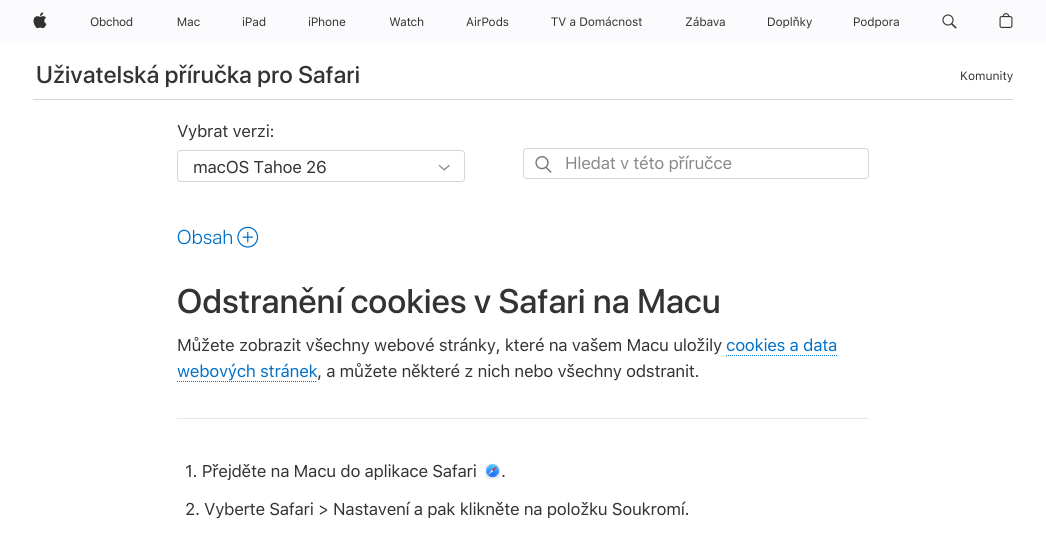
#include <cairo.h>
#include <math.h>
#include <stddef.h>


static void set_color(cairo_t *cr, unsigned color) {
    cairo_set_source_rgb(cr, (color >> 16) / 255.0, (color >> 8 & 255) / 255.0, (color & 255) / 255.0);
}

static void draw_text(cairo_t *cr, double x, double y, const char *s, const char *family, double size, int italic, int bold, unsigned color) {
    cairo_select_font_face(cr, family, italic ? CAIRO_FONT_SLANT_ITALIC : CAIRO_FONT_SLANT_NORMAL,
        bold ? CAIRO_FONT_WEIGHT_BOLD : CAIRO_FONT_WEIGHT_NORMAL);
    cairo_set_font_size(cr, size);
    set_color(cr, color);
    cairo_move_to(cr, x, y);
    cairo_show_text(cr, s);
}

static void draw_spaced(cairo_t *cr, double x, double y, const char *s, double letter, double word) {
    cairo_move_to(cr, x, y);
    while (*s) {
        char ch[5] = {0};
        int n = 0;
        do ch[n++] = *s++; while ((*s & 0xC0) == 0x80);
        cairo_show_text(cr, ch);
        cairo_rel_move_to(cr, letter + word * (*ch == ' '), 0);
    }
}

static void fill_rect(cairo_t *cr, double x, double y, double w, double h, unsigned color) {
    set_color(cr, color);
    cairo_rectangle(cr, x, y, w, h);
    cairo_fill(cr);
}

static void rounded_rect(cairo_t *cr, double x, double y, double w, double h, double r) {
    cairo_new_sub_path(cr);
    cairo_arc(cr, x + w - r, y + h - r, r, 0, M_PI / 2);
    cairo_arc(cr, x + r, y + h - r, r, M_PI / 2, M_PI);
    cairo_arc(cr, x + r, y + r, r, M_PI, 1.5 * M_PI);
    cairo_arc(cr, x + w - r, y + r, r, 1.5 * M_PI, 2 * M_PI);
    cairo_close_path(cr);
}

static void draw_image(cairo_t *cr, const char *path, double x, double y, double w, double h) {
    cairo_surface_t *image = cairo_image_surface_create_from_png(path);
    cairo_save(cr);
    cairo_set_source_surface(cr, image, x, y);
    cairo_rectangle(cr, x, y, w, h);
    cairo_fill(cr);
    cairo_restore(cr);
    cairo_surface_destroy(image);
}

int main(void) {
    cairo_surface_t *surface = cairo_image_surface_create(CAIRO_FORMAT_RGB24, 1046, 544);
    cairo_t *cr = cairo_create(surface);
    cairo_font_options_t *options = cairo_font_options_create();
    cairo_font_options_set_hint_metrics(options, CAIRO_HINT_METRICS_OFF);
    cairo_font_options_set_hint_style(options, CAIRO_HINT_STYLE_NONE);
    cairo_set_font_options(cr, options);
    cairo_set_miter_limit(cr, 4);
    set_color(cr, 0xFFFFFF);
    cairo_paint(cr);
    fill_rect(cr, 0, 0, 1046, 44, 0xFBFBFD);
    draw_image(cr, "assets/img1.png", 33, 12, 14, 17);
    draw_image(cr, "assets/img2.png", 90, 17, 43, 10);
    draw_image(cr, "assets/img3.png", 177, 17, 23, 10);
    draw_image(cr, "assets/img4.png", 242, 17, 24, 10);
    draw_image(cr, "assets/img5.png", 308, 17, 38, 10);
    draw_image(cr, "assets/img6.png", 389, 17, 35, 10);
    draw_image(cr, "assets/img7.png", 466, 17, 43, 10);
    draw_image(cr, "assets/img8.png", 551, 16, 91, 10);
    draw_image(cr, "assets/img9.png", 685, 16, 40, 11);
    draw_image(cr, "assets/img10.png", 768, 16, 44, 13);
    draw_image(cr, "assets/img11.png", 854, 17, 45, 12);
    draw_image(cr, "assets/img12.png", 942, 14, 15, 15);
    draw_image(cr, "assets/img13.png", 999, 13, 14, 15);
    cairo_select_font_face(cr, "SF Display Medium", CAIRO_FONT_SLANT_NORMAL, CAIRO_FONT_WEIGHT_NORMAL);
    cairo_set_font_size(cr, 24);
    set_color(cr, 0x333333);
    draw_spaced(cr, 36, 83, "Uživatelská příručka pro Safari", 0.35, 0);
    draw_text(cr, 960, 80, "Komunity", "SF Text", 12, 0, 0, 0x333333);
    fill_rect(cr, 33, 99, 980, 1, 0xD6D6D6);
    cairo_set_font_size(cr, 17);
    set_color(cr, 0x333333);
    draw_spaced(cr, 177, 137, "Vybrat verzi:", -0.35, 0);
    rounded_rect(cr, 177.5, 150.5, 287, 31, 3.5);
    set_color(cr, 0xD6D6D6);
    cairo_set_line_width(cr, 1);
    cairo_stroke(cr);
    set_color(cr, 0x333333);
    draw_spaced(cr, 193, 173, "macOS Tahoe 26", -0.35, 0);
    draw_image(cr, "assets/img14.png", 438, 164, 12, 7);
    rounded_rect(cr, 523.5, 148.5, 345, 30, 3.5);
    set_color(cr, 0xD6D6D6);
    cairo_stroke(cr);
    draw_image(cr, "assets/img15.png", 535, 156, 17, 17);
    set_color(cr, 0x888888);
    draw_spaced(cr, 565, 169, "Hledat v této příručce", -0.35, 0);
    cairo_select_font_face(cr, "SF Display Light", CAIRO_FONT_SLANT_NORMAL, CAIRO_FONT_WEIGHT_NORMAL);
    cairo_set_font_size(cr, 20);
    set_color(cr, 0x0070C9);
    draw_spaced(cr, 177, 244, "Obsah", 0.35, 0);
    draw_image(cr, "assets/img16.png", 237, 226, 22, 22);
    cairo_select_font_face(cr, "SF Display Medium", CAIRO_FONT_SLANT_NORMAL, CAIRO_FONT_WEIGHT_NORMAL);
    cairo_set_font_size(cr, 34);
    set_color(cr, 0x333333);
    draw_spaced(cr, 177, 313, "Odstranění cookies v Safari na Macu", 0.35, 0);
    cairo_select_font_face(cr, "SF Text", CAIRO_FONT_SLANT_NORMAL, CAIRO_FONT_WEIGHT_NORMAL);
    cairo_set_font_size(cr, 17);
    draw_spaced(cr, 177, 351, "Můžete zobrazit všechny webové stránky, které na vašem Macu uložily", -0.35, 0);
    set_color(cr, 0x0070C9);
    draw_spaced(cr, 726, 351, "cookies a data", -0.35, 0);
    cairo_new_path(cr);
    cairo_move_to(cr, 726, 355.5);
    cairo_line_to(cr, 837, 355.5);
    cairo_set_dash(cr, (double[]){1, 1}, 2, 0);
    cairo_stroke(cr);
    draw_spaced(cr, 177, 377, "webových stránek", -0.35, 0);
    cairo_new_path(cr);
    cairo_move_to(cr, 177, 381.5);
    cairo_line_to(cr, 317, 381.5);
    cairo_stroke(cr);
    set_color(cr, 0x333333);
    draw_spaced(cr, 317, 377, ", a můžete některé z nich nebo všechny odstranit.", -0.35, 0);
    fill_rect(cr, 177, 418, 692, 1, 0xE6E6E6);
    set_color(cr, 0x333333);
    draw_spaced(cr, 185, 477, "1. Přejděte na Macu do aplikace Safari", -0.35, 0);
    draw_image(cr, "assets/img17.png", 484, 463, 17, 16);
    draw_spaced(cr, 501, 477, ".", -0.35, 0);
    draw_spaced(cr, 185, 515, "2. Vyberte Safari > Nastavení a pak klikněte na položku Soukromí.", -0.35, 0);
    cairo_surface_write_to_png(surface, "output.png");
    cairo_font_options_destroy(options);
    cairo_destroy(cr);
    cairo_surface_destroy(surface);
    return 0;
}
